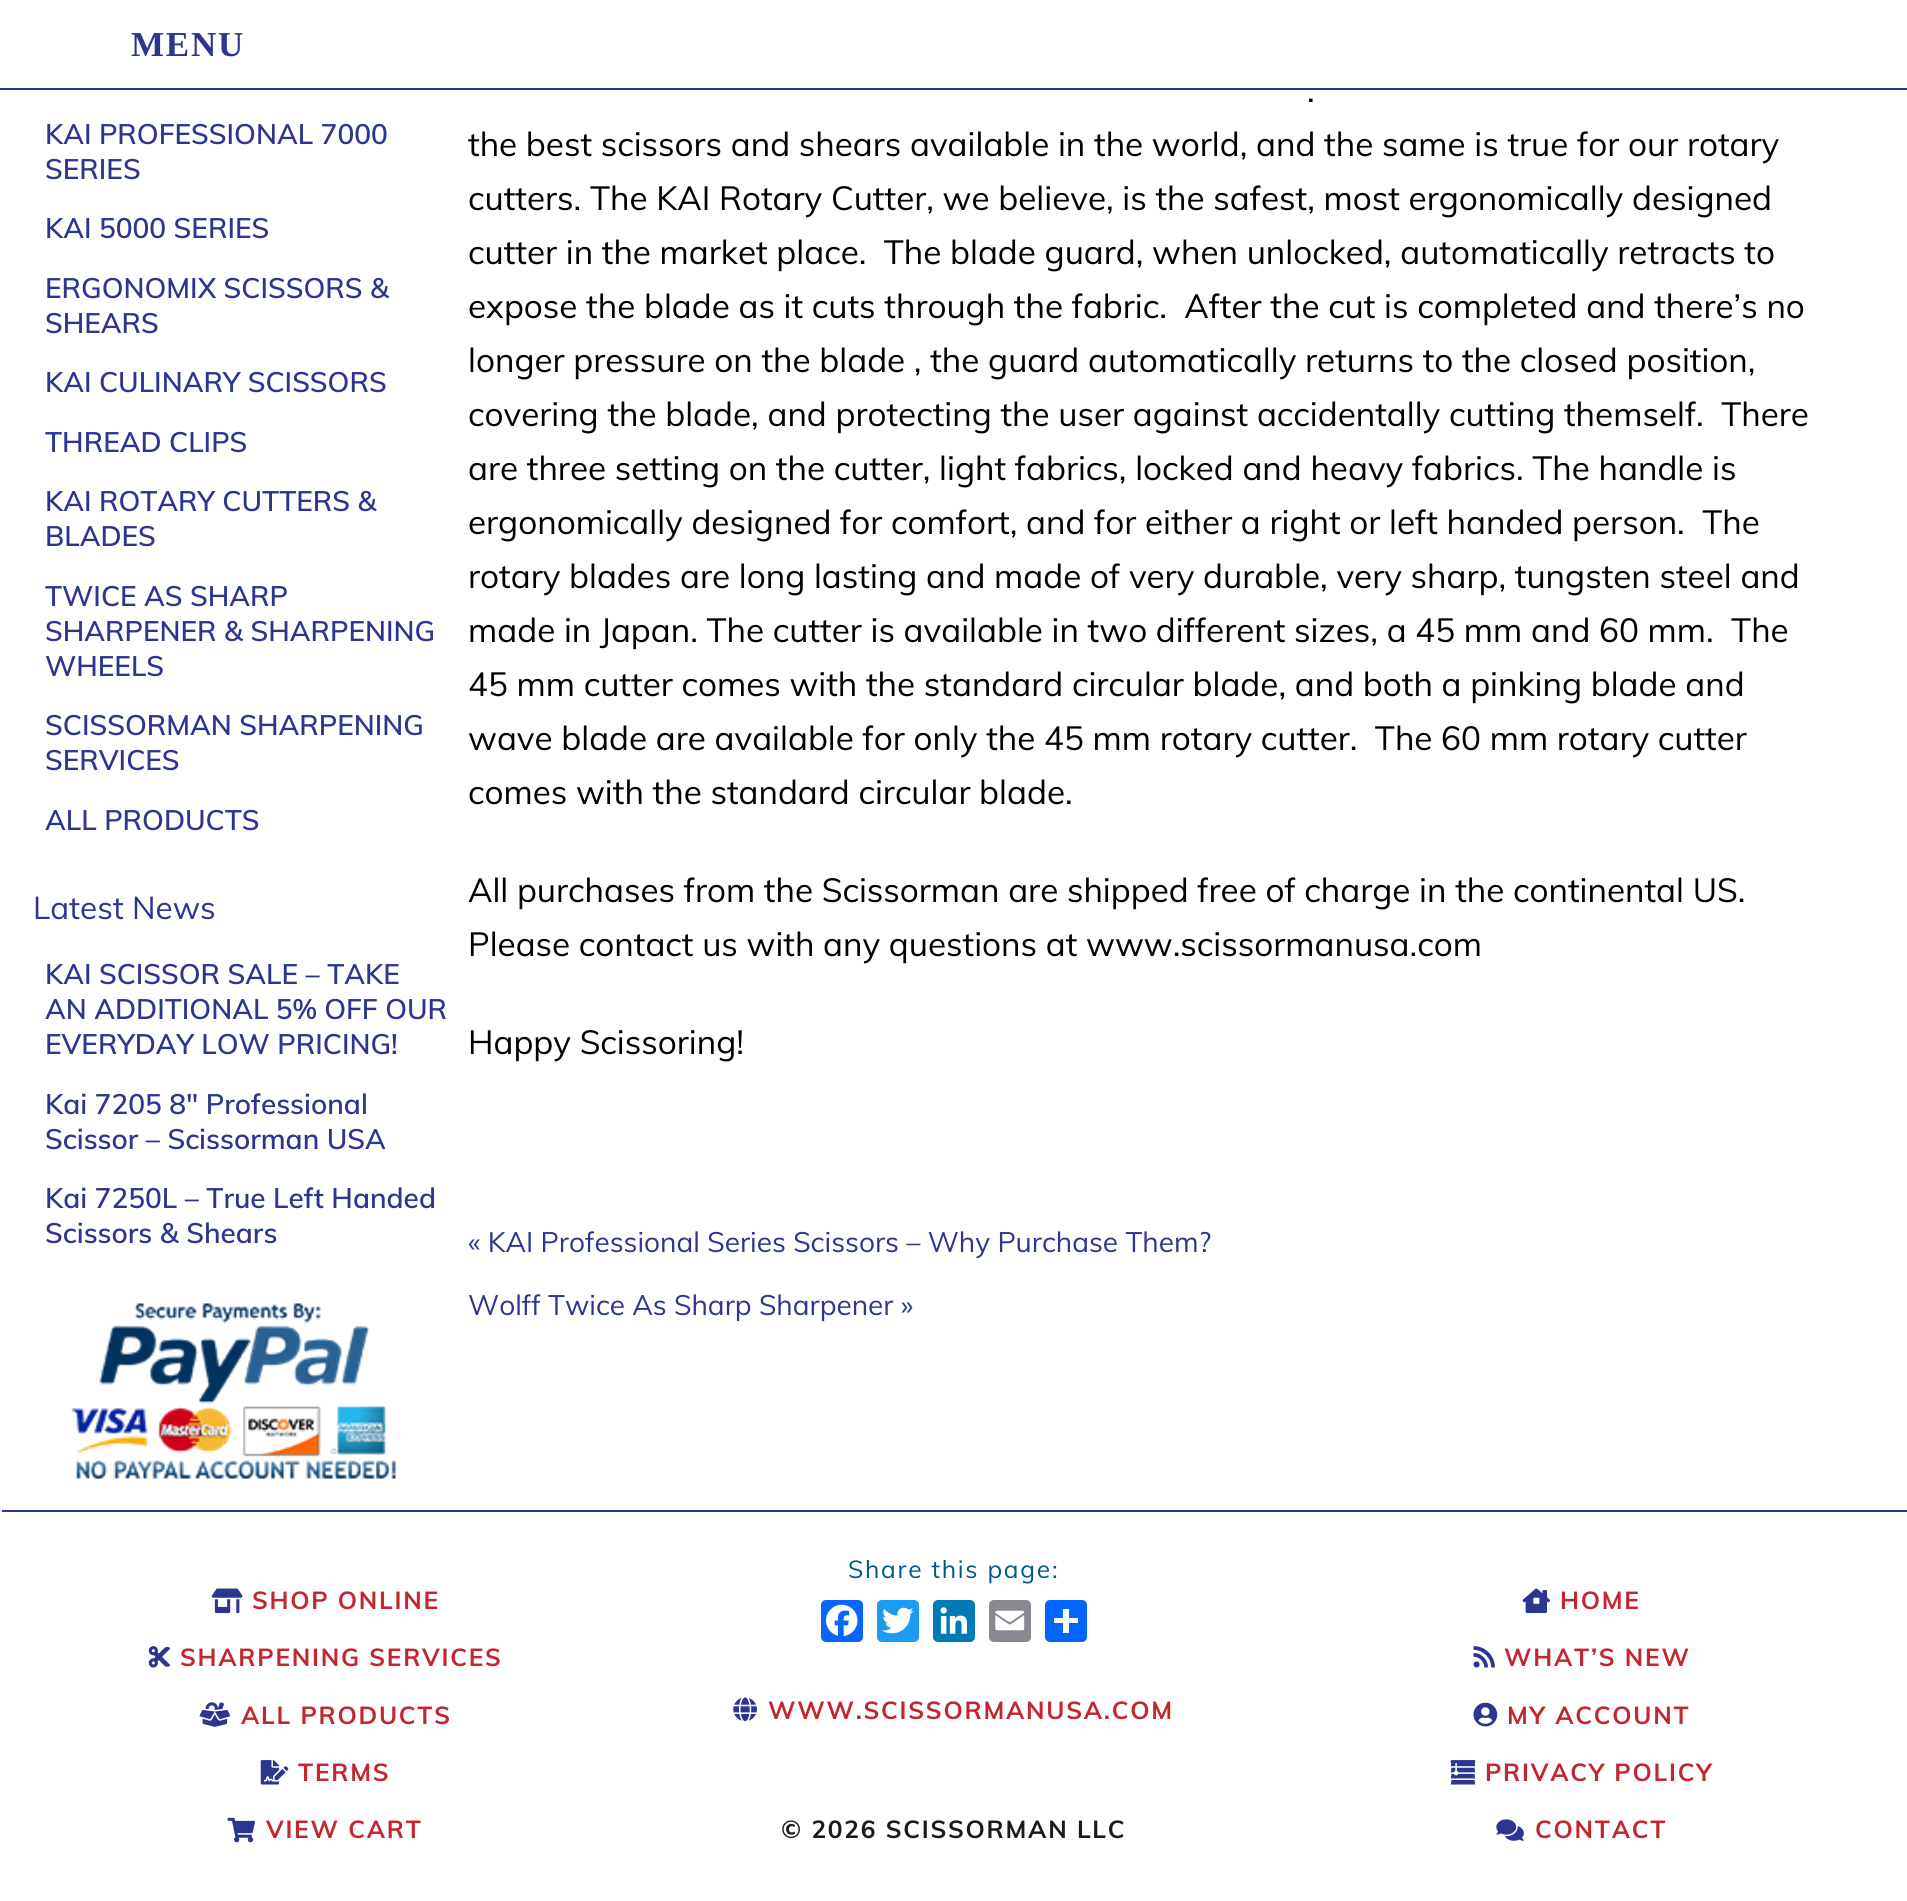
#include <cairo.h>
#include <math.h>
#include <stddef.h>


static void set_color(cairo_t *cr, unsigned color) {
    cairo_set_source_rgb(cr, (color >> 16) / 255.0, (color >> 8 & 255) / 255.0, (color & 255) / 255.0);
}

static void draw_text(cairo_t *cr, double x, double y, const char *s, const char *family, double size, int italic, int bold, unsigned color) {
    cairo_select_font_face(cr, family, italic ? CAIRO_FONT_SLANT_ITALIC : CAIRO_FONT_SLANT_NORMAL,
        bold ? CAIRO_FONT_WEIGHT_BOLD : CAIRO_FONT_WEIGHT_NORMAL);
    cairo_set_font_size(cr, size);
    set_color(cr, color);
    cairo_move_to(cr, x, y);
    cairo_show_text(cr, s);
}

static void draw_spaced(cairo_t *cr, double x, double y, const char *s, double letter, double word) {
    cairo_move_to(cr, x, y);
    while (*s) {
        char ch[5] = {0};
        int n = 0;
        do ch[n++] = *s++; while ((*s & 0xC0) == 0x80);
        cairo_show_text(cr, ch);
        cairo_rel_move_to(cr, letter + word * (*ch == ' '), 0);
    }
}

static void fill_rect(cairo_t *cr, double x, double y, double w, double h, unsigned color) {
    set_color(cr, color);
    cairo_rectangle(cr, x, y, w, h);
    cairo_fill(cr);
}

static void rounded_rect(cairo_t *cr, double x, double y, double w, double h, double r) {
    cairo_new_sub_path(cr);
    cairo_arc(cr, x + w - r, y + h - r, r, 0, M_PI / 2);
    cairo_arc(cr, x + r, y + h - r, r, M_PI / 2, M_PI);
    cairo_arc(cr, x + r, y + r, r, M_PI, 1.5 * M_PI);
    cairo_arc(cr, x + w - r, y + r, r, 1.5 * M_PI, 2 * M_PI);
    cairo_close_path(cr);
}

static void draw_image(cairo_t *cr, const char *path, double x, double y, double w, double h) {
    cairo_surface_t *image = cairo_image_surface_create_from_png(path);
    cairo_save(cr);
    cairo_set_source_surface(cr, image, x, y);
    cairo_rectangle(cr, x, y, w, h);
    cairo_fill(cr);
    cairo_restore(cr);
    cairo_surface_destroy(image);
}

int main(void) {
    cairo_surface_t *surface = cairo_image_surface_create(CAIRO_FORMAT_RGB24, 1907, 1901);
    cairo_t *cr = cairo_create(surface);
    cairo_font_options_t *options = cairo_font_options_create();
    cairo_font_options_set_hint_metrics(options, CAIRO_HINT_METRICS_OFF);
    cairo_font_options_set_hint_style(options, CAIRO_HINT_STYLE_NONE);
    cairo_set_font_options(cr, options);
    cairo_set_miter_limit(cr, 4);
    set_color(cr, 0xFFFFFF);
    cairo_paint(cr);
    fill_rect(cr, 0, 88, 1907, 2, 0x2C3691);
    cairo_select_font_face(cr, "Liberation Serif", CAIRO_FONT_SLANT_NORMAL, CAIRO_FONT_WEIGHT_BOLD);
    cairo_set_font_size(cr, 35);
    draw_spaced(cr, 131, 56, "MENU", 1.75, 0);
    draw_text(cr, 45, 144, "KAI PROFESSIONAL 7000", "Muli SemiBold", 28, 0, 0, 0x2C3691);
    draw_text(cr, 45, 179, "SERIES", "Muli SemiBold", 28, 0, 0, 0x2C3691);
    draw_text(cr, 45, 238, "KAI 5000 SERIES", "Muli SemiBold", 28, 0, 0, 0x2C3691);
    draw_text(cr, 45, 298, "ERGONOMIX SCISSORS &", "Muli SemiBold", 28, 0, 0, 0x2C3691);
    draw_text(cr, 45, 333, "SHEARS", "Muli SemiBold", 28, 0, 0, 0x2C3691);
    draw_text(cr, 45, 392, "KAI CULINARY SCISSORS", "Muli SemiBold", 28, 0, 0, 0x2C3691);
    draw_text(cr, 45, 452, "THREAD CLIPS", "Muli SemiBold", 28, 0, 0, 0x2C3691);
    draw_text(cr, 45, 511, "KAI ROTARY CUTTERS &", "Muli SemiBold", 28, 0, 0, 0x2C3691);
    draw_text(cr, 45, 546, "BLADES", "Muli SemiBold", 28, 0, 0, 0x2C3691);
    draw_text(cr, 45, 606, "TWICE AS SHARP", "Muli SemiBold", 28, 0, 0, 0x2C3691);
    draw_text(cr, 45, 641, "SHARPENER & SHARPENING", "Muli SemiBold", 28, 0, 0, 0x2C3691);
    draw_text(cr, 45, 676, "WHEELS", "Muli SemiBold", 28, 0, 0, 0x2C3691);
    draw_text(cr, 45, 735, "SCISSORMAN SHARPENING", "Muli SemiBold", 28, 0, 0, 0x2C3691);
    draw_text(cr, 45, 770, "SERVICES", "Muli SemiBold", 28, 0, 0, 0x2C3691);
    draw_text(cr, 45, 830, "ALL PRODUCTS", "Muli SemiBold", 28, 0, 0, 0x2C3691);
    draw_text(cr, 33, 919, "Latest News", "Muli", 31.5, 0, 0, 0x2C3691);
    draw_text(cr, 45, 984, "KAI SCISSOR SALE – TAKE", "Muli SemiBold", 28, 0, 0, 0x2C3691);
    draw_text(cr, 45, 1019, "AN ADDITIONAL 5% OFF OUR", "Muli SemiBold", 28, 0, 0, 0x2C3691);
    draw_text(cr, 45, 1054, "EVERYDAY LOW PRICING!", "Muli SemiBold", 28, 0, 0, 0x2C3691);
    draw_text(cr, 45, 1114, "Kai 7205 8″ Professional", "Muli SemiBold", 28, 0, 0, 0x2C3691);
    draw_text(cr, 45, 1149, "Scissor – Scissorman USA", "Muli SemiBold", 28, 0, 0, 0x2C3691);
    draw_text(cr, 45, 1208, "Kai 7250L – True Left Handed", "Muli SemiBold", 28, 0, 0, 0x2C3691);
    draw_text(cr, 45, 1243, "Scissors & Shears", "Muli SemiBold", 28, 0, 0, 0x2C3691);
    draw_image(cr, "assets/img1.png", 71, 1303, 325, 176);
    draw_text(cr, 1307, 102, ".", "Muli", 33.25, 0, 0, 0x000000);
    draw_text(cr, 468, 156, "the best scissors and shears available in the world, and the same is true for our rotary", "Muli", 33.25, 0, 0, 0x000000);
    draw_text(cr, 468, 210, "cutters. The KAI Rotary Cutter, we believe, is the safest, most ergonomically designed", "Muli", 33.25, 0, 0, 0x000000);
    draw_text(cr, 468, 264, "cutter in the market place.  The blade guard, when unlocked, automatically retracts to", "Muli", 33.25, 0, 0, 0x000000);
    draw_text(cr, 468, 318, "expose the blade as it cuts through the fabric.  After the cut is completed and there’s no", "Muli", 33.25, 0, 0, 0x000000);
    draw_text(cr, 468, 372, "longer pressure on the blade , the guard automatically returns to the closed position,", "Muli", 33.25, 0, 0, 0x000000);
    draw_text(cr, 468, 426, "covering the blade, and protecting the user against accidentally cutting themself.  There", "Muli", 33.25, 0, 0, 0x000000);
    draw_text(cr, 468, 480, "are three setting on the cutter, light fabrics, locked and heavy fabrics. The handle is", "Muli", 33.25, 0, 0, 0x000000);
    draw_text(cr, 468, 534, "ergonomically designed for comfort, and for either a right or left handed person.  The", "Muli", 33.25, 0, 0, 0x000000);
    draw_text(cr, 468, 588, "rotary blades are long lasting and made of very durable, very sharp, tungsten steel and", "Muli", 33.25, 0, 0, 0x000000);
    draw_text(cr, 468, 642, "made in Japan. The cutter is available in two different sizes, a 45 mm and 60 mm.  The", "Muli", 33.25, 0, 0, 0x000000);
    draw_text(cr, 468, 696, "45 mm cutter comes with the standard circular blade, and both a pinking blade and", "Muli", 33.25, 0, 0, 0x000000);
    draw_text(cr, 468, 750, "wave blade are available for only the 45 mm rotary cutter.  The 60 mm rotary cutter", "Muli", 33.25, 0, 0, 0x000000);
    draw_text(cr, 468, 804, "comes with the standard circular blade.", "Muli", 33.25, 0, 0, 0x000000);
    draw_text(cr, 468, 902, "All purchases from the Scissorman are shipped free of charge in the continental US.", "Muli", 33.25, 0, 0, 0x000000);
    draw_text(cr, 468, 956, "Please contact us with any questions at www.scissormanusa.com", "Muli", 33.25, 0, 0, 0x000000);
    draw_text(cr, 468, 1054, "Happy Scissoring!", "Muli", 33.25, 0, 0, 0x000000);
    draw_text(cr, 468, 1252, "« KAI Professional Series Scissors – Why Purchase Them?", "Muli", 28, 0, 0, 0x2C3691);
    draw_text(cr, 468, 1315, "Wolff Twice As Sharp Sharpener »", "Muli", 28, 0, 0, 0x2C3691);
    fill_rect(cr, 0, 1510, 1907, 2, 0x2C3691);
    fill_rect(cr, 0, 1510, 2, 2, 0xE8E9F3);
    draw_image(cr, "assets/img2.png", 211, 1588, 32, 26);
    cairo_select_font_face(cr, "Muli", CAIRO_FONT_SLANT_NORMAL, CAIRO_FONT_WEIGHT_BOLD);
    cairo_set_font_size(cr, 24.5);
    set_color(cr, 0xC3262E);
    draw_spaced(cr, 252, 1609, "SHOP ONLINE", 1.75, 0);
    draw_image(cr, "assets/img3.png", 148, 1646, 23, 22);
    draw_spaced(cr, 180, 1666, "SHARPENING SERVICES", 1.75, 0);
    draw_image(cr, "assets/img4.png", 199, 1702, 32, 25);
    draw_spaced(cr, 241, 1724, "ALL PRODUCTS", 1.75, 0);
    draw_image(cr, "assets/img5.png", 260, 1760, 29, 25);
    draw_spaced(cr, 298, 1781, "TERMS", 1.75, 0);
    draw_image(cr, "assets/img6.png", 227, 1817, 28, 26);
    draw_spaced(cr, 266, 1838, "VIEW CART", 1.75, 0);
    cairo_select_font_face(cr, "Muli", CAIRO_FONT_SLANT_NORMAL, CAIRO_FONT_WEIGHT_NORMAL);
    set_color(cr, 0x005689);
    draw_spaced(cr, 848, 1578, "Share this page:", 1.75, 0);
    set_color(cr, 0x0866FF);
    rounded_rect(cr, 821, 1600, 42, 42, 5);
    cairo_fill(cr);
    draw_image(cr, "assets/img7.png", 826, 1604, 32, 33);
    set_color(cr, 0x1D9BF0);
    rounded_rect(cr, 877, 1600, 42, 42, 5);
    cairo_fill(cr);
    draw_image(cr, "assets/img8.png", 882, 1607, 32, 27);
    set_color(cr, 0x007BB5);
    rounded_rect(cr, 933, 1600, 42, 42, 5);
    cairo_fill(cr);
    draw_image(cr, "assets/img9.png", 940, 1607, 27, 27);
    set_color(cr, 0x888990);
    rounded_rect(cr, 989, 1600, 42, 42, 5);
    cairo_fill(cr);
    draw_image(cr, "assets/img10.png", 995, 1610, 30, 21);
    set_color(cr, 0x0166FF);
    rounded_rect(cr, 1045, 1600, 42, 42, 5);
    cairo_fill(cr);
    fill_rect(cr, 1063, 1609, 6, 24, 0xFFFFFF);
    fill_rect(cr, 1054, 1618, 24, 5, 0xFFFFFF);
    draw_image(cr, "assets/img11.png", 733, 1697, 24, 25);
    cairo_select_font_face(cr, "Muli", CAIRO_FONT_SLANT_NORMAL, CAIRO_FONT_WEIGHT_BOLD);
    set_color(cr, 0xC3262E);
    draw_spaced(cr, 768, 1719, "WWW.SCISSORMANUSA.COM", 1.75, 0);
    set_color(cr, 0x1A1A1A);
    draw_spaced(cr, 781, 1838, "© 2026 SCISSORMAN LLC", 1.75, 0);
    draw_image(cr, "assets/img12.png", 1522, 1588, 29, 26);
    set_color(cr, 0xC3262E);
    draw_spaced(cr, 1560, 1609, "HOME", 1.75, 0);
    draw_image(cr, "assets/img13.png", 1473, 1646, 22, 22);
    draw_spaced(cr, 1504, 1666, "WHAT’S NEW", 1.75, 0);
    draw_image(cr, "assets/img14.png", 1473, 1702, 25, 25);
    draw_spaced(cr, 1507, 1724, "MY ACCOUNT", 1.75, 0);
    draw_image(cr, "assets/img15.png", 1450, 1760, 26, 25);
    draw_spaced(cr, 1485, 1781, "PRIVACY POLICY", 1.75, 0);
    draw_image(cr, "assets/img16.png", 1496, 1819, 28, 22);
    draw_spaced(cr, 1535, 1838, "CONTACT", 1.75, 0);
    cairo_surface_write_to_png(surface, "output.png");
    cairo_font_options_destroy(options);
    cairo_destroy(cr);
    cairo_surface_destroy(surface);
    return 0;
}
